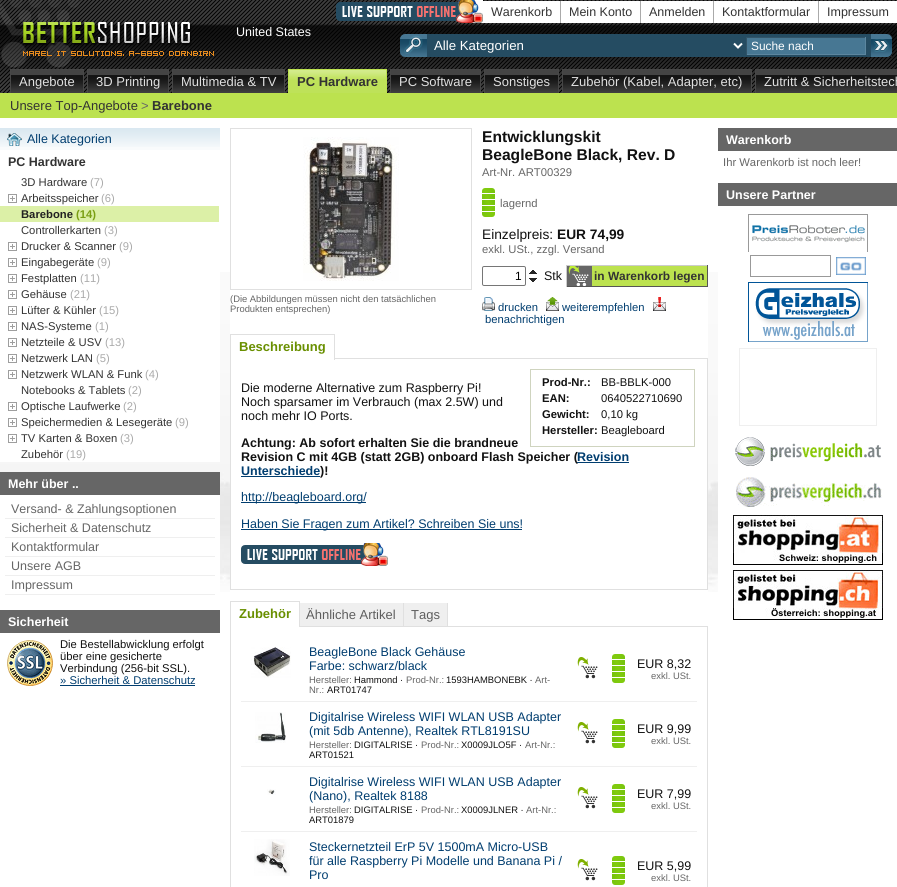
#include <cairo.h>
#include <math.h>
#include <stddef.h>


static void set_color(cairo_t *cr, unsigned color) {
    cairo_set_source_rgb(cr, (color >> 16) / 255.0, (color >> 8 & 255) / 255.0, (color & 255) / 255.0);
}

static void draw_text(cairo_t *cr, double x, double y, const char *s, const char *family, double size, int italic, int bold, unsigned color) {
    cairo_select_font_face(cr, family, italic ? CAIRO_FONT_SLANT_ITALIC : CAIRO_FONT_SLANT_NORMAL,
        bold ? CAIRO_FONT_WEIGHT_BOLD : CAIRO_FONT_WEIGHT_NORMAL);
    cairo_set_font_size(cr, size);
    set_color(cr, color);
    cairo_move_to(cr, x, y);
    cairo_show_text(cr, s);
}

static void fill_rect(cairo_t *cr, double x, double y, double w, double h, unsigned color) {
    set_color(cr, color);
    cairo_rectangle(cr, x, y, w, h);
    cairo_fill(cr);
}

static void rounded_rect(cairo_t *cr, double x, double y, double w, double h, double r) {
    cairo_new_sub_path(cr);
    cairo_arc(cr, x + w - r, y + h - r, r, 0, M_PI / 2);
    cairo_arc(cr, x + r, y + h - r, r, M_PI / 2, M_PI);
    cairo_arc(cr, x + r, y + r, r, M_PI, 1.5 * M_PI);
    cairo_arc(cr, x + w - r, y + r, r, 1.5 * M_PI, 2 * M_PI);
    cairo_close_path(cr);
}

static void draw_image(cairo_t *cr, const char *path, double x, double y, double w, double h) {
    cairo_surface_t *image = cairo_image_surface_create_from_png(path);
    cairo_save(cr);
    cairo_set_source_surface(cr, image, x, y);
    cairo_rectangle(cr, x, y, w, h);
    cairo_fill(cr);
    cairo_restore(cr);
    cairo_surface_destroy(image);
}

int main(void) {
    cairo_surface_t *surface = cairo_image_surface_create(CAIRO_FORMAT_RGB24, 897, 887);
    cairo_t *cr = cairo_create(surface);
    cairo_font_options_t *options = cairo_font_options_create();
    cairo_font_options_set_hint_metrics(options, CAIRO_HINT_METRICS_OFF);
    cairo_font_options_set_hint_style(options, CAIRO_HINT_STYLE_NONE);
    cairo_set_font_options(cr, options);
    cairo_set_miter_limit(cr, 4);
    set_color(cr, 0xFFFFFF);
    cairo_paint(cr);
    draw_image(cr, "assets/img1.png", 0, 272, 718, 320);
    draw_image(cr, "assets/img2.png", 0, 0, 897, 93);
    draw_image(cr, "assets/img3.png", 0, 0, 214, 68);
    draw_image(cr, "assets/img4.png", 336, 0, 147, 23);
    fill_rect(cr, 483, 1, 77, 22, 0xFFFFFF);
    fill_rect(cr, 560, 1, 1, 22, 0xAAAAAA);
    draw_text(cr, 491, 16, "Warenkorb", "Liberation Sans", 12.5, 0, 0, 0x333333);
    fill_rect(cr, 561, 1, 79, 22, 0xFFFFFF);
    fill_rect(cr, 640, 1, 1, 22, 0xAAAAAA);
    draw_text(cr, 569, 16, "Mein Konto", "Liberation Sans", 12.5, 0, 0, 0x333333);
    fill_rect(cr, 641, 1, 72, 22, 0xFFFFFF);
    fill_rect(cr, 713, 1, 1, 22, 0xAAAAAA);
    draw_text(cr, 649, 16, "Anmelden", "Liberation Sans", 12.5, 0, 0, 0x333333);
    fill_rect(cr, 714, 1, 104, 22, 0xFFFFFF);
    fill_rect(cr, 818, 1, 1, 22, 0xAAAAAA);
    draw_text(cr, 722, 16, "Kontaktformular", "Liberation Sans", 12.5, 0, 0, 0x333333);
    fill_rect(cr, 819, 1, 78, 22, 0xFFFFFF);
    draw_text(cr, 827, 16, "Impressum", "Liberation Sans", 12.5, 0, 0, 0x333333);
    draw_text(cr, 236, 36, "United States", "Liberation Sans", 12.5, 0, 0, 0xFFFFFF);
    fill_rect(cr, 427, 34, 444, 23, 0x254C62);
    draw_image(cr, "assets/img5.png", 400, 34, 27, 23);
    cairo_new_path(cr);
    cairo_move_to(cr, 734, 43.5);
    cairo_line_to(cr, 738, 47.5);
    cairo_line_to(cr, 742, 43.5);
    set_color(cr, 0xFFFFFF);
    cairo_stroke(cr);
    draw_text(cr, 434, 50, "Alle Kategorien", "Liberation Sans", 13.25, 0, 0, 0xFFFFFF);
    fill_rect(cr, 747, 38, 118, 16, 0x477793);
    fill_rect(cr, 746, 37, 120, 1, 0x325468);
    fill_rect(cr, 865, 37, 1, 18, 0x5C869F);
    fill_rect(cr, 746, 54, 120, 1, 0x5C869F);
    fill_rect(cr, 746, 37, 1, 18, 0x325468);
    draw_text(cr, 751, 50, "Suche nach", "Liberation Sans", 11.9, 0, 0, 0xFFFFFF);
    draw_image(cr, "assets/img6.png", 871, 34, 21, 23);
    draw_image(cr, "assets/img7.png", 11, 70, 72, 23);
    fill_rect(cr, 10, 69, 74, 1, 0x474747);
    fill_rect(cr, 83, 69, 1, 24, 0x474747);
    fill_rect(cr, 10, 69, 1, 24, 0x474747);
    draw_text(cr, 19, 86, "Angebote", "Liberation Sans", 13, 0, 0, 0xE0E0E0);
    draw_image(cr, "assets/img8.png", 88, 70, 80, 23);
    fill_rect(cr, 87, 69, 82, 1, 0x474747);
    fill_rect(cr, 168, 69, 1, 24, 0x474747);
    fill_rect(cr, 87, 69, 1, 24, 0x474747);
    draw_text(cr, 96, 86, "3D Printing", "Liberation Sans", 13, 0, 0, 0xE0E0E0);
    draw_image(cr, "assets/img9.png", 173, 70, 111, 23);
    fill_rect(cr, 172, 69, 113, 1, 0x474747);
    fill_rect(cr, 284, 69, 1, 24, 0x474747);
    fill_rect(cr, 172, 69, 1, 24, 0x474747);
    draw_text(cr, 181, 86, "Multimedia & TV", "Liberation Sans", 13, 0, 0, 0xE0E0E0);
    draw_image(cr, "assets/img10.png", 289, 70, 97, 23);
    fill_rect(cr, 288, 69, 99, 1, 0xBCE24F);
    fill_rect(cr, 386, 69, 1, 24, 0xBCE24F);
    fill_rect(cr, 288, 69, 1, 24, 0xBCE24F);
    draw_text(cr, 297, 86, "PC Hardware", "Liberation Sans", 13, 0, 1, 0x333333);
    draw_image(cr, "assets/img11.png", 391, 70, 89, 23);
    fill_rect(cr, 390, 69, 91, 1, 0x474747);
    fill_rect(cr, 480, 69, 1, 24, 0x474747);
    fill_rect(cr, 390, 69, 1, 24, 0x474747);
    draw_text(cr, 399, 86, "PC Software", "Liberation Sans", 13, 0, 0, 0xE0E0E0);
    draw_image(cr, "assets/img12.png", 485, 70, 73, 23);
    fill_rect(cr, 484, 69, 75, 1, 0x474747);
    fill_rect(cr, 558, 69, 1, 24, 0x474747);
    fill_rect(cr, 484, 69, 1, 24, 0x474747);
    draw_text(cr, 493, 86, "Sonstiges", "Liberation Sans", 13, 0, 0, 0xE0E0E0);
    draw_image(cr, "assets/img13.png", 563, 70, 188, 23);
    fill_rect(cr, 562, 69, 190, 1, 0x474747);
    fill_rect(cr, 751, 69, 1, 24, 0x474747);
    fill_rect(cr, 562, 69, 1, 24, 0x474747);
    draw_text(cr, 571, 86, "Zubehör (Kabel, Adapter, etc)", "Liberation Sans", 13, 0, 0, 0xE0E0E0);
    draw_image(cr, "assets/img14.png", 756, 70, 141, 23);
    fill_rect(cr, 755, 69, 142, 1, 0x474747);
    fill_rect(cr, 755, 69, 1, 24, 0x474747);
    draw_text(cr, 764, 86, "Zutritt & Sicherheitstech", "Liberation Sans", 13, 0, 0, 0xE0E0E0);
    fill_rect(cr, 0, 93, 897, 25, 0xBCE24F);
    draw_text(cr, 10, 110, "Unsere Top-Angebote", "Liberation Sans", 13, 0, 0, 0x333333);
    draw_text(cr, 141, 110, ">", "Liberation Sans", 13, 0, 0, 0x666666);
    draw_text(cr, 152, 110, "Barebone", "Liberation Sans", 13, 0, 1, 0x333333);
    fill_rect(cr, 0, 147, 220, 3, 0xF9FBFC);
    draw_image(cr, "assets/img15.png", 0, 128, 220, 19);
    draw_image(cr, "assets/img16.png", 7, 133, 15, 13);
    draw_text(cr, 27, 143, "Alle Kategorien", "Liberation Sans", 12.5, 0, 0, 0x003D6F);
    draw_text(cr, 8, 166, "PC Hardware", "Liberation Sans", 12.5, 0, 1, 0x333333);
    fill_rect(cr, 219, 272, 1, 190, 0xFFFFFF);
    draw_text(cr, 21, 186, "3D Hardware", "Liberation Sans", 11.25, 0, 0, 0x333333);
    draw_text(cr, 90, 186, "(7)", "Liberation Sans", 11.25, 0, 0, 0xAAAAAA);
    draw_image(cr, "assets/img17.png", 8, 194, 9, 9);
    draw_text(cr, 21, 202, "Arbeitsspeicher", "Liberation Sans", 11.25, 0, 0, 0x333333);
    draw_text(cr, 101, 202, "(6)", "Liberation Sans", 11.25, 0, 0, 0xAAAAAA);
    fill_rect(cr, 0, 206, 219, 16, 0xDCF0A7);
    draw_text(cr, 21, 218, "Barebone", "Liberation Sans", 11.25, 0, 1, 0x222222);
    draw_text(cr, 76, 218, "(14)", "Liberation Sans", 11.25, 0, 1, 0x7A9F13);
    draw_text(cr, 21, 234, "Controllerkarten", "Liberation Sans", 11.25, 0, 0, 0x333333);
    draw_text(cr, 104, 234, "(3)", "Liberation Sans", 11.25, 0, 0, 0xAAAAAA);
    draw_image(cr, "assets/img17.png", 8, 242, 9, 9);
    draw_text(cr, 21, 250, "Drucker & Scanner", "Liberation Sans", 11.25, 0, 0, 0x333333);
    draw_text(cr, 119, 250, "(9)", "Liberation Sans", 11.25, 0, 0, 0xAAAAAA);
    draw_image(cr, "assets/img17.png", 8, 258, 9, 9);
    draw_text(cr, 21, 266, "Eingabegeräte", "Liberation Sans", 11.25, 0, 0, 0x333333);
    draw_text(cr, 97, 266, "(9)", "Liberation Sans", 11.25, 0, 0, 0xAAAAAA);
    fill_rect(cr, 0, 272, 219, 190, 0xFFFFFF);
    draw_image(cr, "assets/img17.png", 8, 274, 9, 9);
    draw_text(cr, 21, 282, "Festplatten", "Liberation Sans", 11.25, 0, 0, 0x333333);
    draw_text(cr, 80, 282, "(11)", "Liberation Sans", 11.25, 0, 0, 0xAAAAAA);
    draw_image(cr, "assets/img17.png", 8, 290, 9, 9);
    draw_text(cr, 21, 298, "Gehäuse", "Liberation Sans", 11.25, 0, 0, 0x333333);
    draw_text(cr, 70, 298, "(21)", "Liberation Sans", 11.25, 0, 0, 0xAAAAAA);
    draw_image(cr, "assets/img17.png", 8, 306, 9, 9);
    draw_text(cr, 21, 314, "Lüfter & Kühler", "Liberation Sans", 11.25, 0, 0, 0x333333);
    draw_text(cr, 99, 314, "(15)", "Liberation Sans", 11.25, 0, 0, 0xAAAAAA);
    draw_image(cr, "assets/img17.png", 8, 322, 9, 9);
    draw_text(cr, 21, 330, "NAS-Systeme", "Liberation Sans", 11.25, 0, 0, 0x333333);
    draw_text(cr, 95, 330, "(1)", "Liberation Sans", 11.25, 0, 0, 0xAAAAAA);
    draw_image(cr, "assets/img17.png", 8, 338, 9, 9);
    draw_text(cr, 21, 346, "Netzteile & USV", "Liberation Sans", 11.25, 0, 0, 0x333333);
    draw_text(cr, 105, 346, "(13)", "Liberation Sans", 11.25, 0, 0, 0xAAAAAA);
    draw_image(cr, "assets/img17.png", 8, 354, 9, 9);
    draw_text(cr, 21, 362, "Netzwerk LAN", "Liberation Sans", 11.25, 0, 0, 0x333333);
    draw_text(cr, 96, 362, "(5)", "Liberation Sans", 11.25, 0, 0, 0xAAAAAA);
    draw_image(cr, "assets/img17.png", 8, 370, 9, 9);
    draw_text(cr, 21, 378, "Netzwerk WLAN & Funk", "Liberation Sans", 11.25, 0, 0, 0x333333);
    draw_text(cr, 145, 378, "(4)", "Liberation Sans", 11.25, 0, 0, 0xAAAAAA);
    draw_text(cr, 21, 394, "Notebooks & Tablets", "Liberation Sans", 11.25, 0, 0, 0x333333);
    draw_text(cr, 128, 394, "(2)", "Liberation Sans", 11.25, 0, 0, 0xAAAAAA);
    draw_image(cr, "assets/img17.png", 8, 402, 9, 9);
    draw_text(cr, 21, 410, "Optische Laufwerke", "Liberation Sans", 11.25, 0, 0, 0x333333);
    draw_text(cr, 123, 410, "(2)", "Liberation Sans", 11.25, 0, 0, 0xAAAAAA);
    draw_image(cr, "assets/img17.png", 8, 418, 9, 9);
    draw_text(cr, 21, 426, "Speichermedien & Lesegeräte", "Liberation Sans", 11.25, 0, 0, 0x333333);
    draw_text(cr, 175, 426, "(9)", "Liberation Sans", 11.25, 0, 0, 0xAAAAAA);
    draw_image(cr, "assets/img17.png", 8, 434, 9, 9);
    draw_text(cr, 21, 442, "TV Karten & Boxen", "Liberation Sans", 11.25, 0, 0, 0x333333);
    draw_text(cr, 120, 442, "(3)", "Liberation Sans", 11.25, 0, 0, 0xAAAAAA);
    draw_text(cr, 21, 458, "Zubehör", "Liberation Sans", 11.25, 0, 0, 0x333333);
    draw_text(cr, 66, 458, "(19)", "Liberation Sans", 11.25, 0, 0, 0xAAAAAA);
    fill_rect(cr, 0, 472, 220, 23, 0x666666);
    draw_text(cr, 8, 488, "Mehr über ..", "Liberation Sans", 12.5, 0, 1, 0xFFFFFF);
    fill_rect(cr, 0, 495, 220, 97, 0xFFFFFF);
    fill_rect(cr, 5, 518, 210, 1, 0xEFEFEF);
    draw_text(cr, 11, 513, "Versand- & Zahlungsoptionen", "Liberation Sans", 12.5, 0, 0, 0x666666);
    fill_rect(cr, 5, 537, 210, 1, 0xEFEFEF);
    draw_text(cr, 11, 532, "Sicherheit & Datenschutz", "Liberation Sans", 12.5, 0, 0, 0x666666);
    fill_rect(cr, 5, 556, 210, 1, 0xEFEFEF);
    draw_text(cr, 11, 551, "Kontaktformular", "Liberation Sans", 12.5, 0, 0, 0x666666);
    fill_rect(cr, 5, 575, 210, 1, 0xEFEFEF);
    draw_text(cr, 11, 570, "Unsere AGB", "Liberation Sans", 12.5, 0, 0, 0x666666);
    fill_rect(cr, 5, 594, 210, 1, 0xEFEFEF);
    draw_text(cr, 11, 589, "Impressum", "Liberation Sans", 12.5, 0, 0, 0x666666);
    fill_rect(cr, 0, 610, 220, 23, 0x666666);
    draw_text(cr, 8, 626, "Sicherheit", "Liberation Sans", 12.5, 0, 1, 0xFFFFFF);
    draw_image(cr, "assets/img18.png", 7, 640, 46, 46);
    draw_text(cr, 60, 648, "Die Bestellabwicklung erfolgt", "Liberation Sans", 11.25, 0, 0, 0x111111);
    draw_text(cr, 60, 660, "über eine gesicherte", "Liberation Sans", 11.25, 0, 0, 0x111111);
    draw_text(cr, 60, 672, "Verbindung (256-bit SSL).", "Liberation Sans", 11.25, 0, 0, 0x111111);
    draw_text(cr, 60, 684, "» Sicherheit & Datenschutz", "Liberation Sans", 11.25, 0, 0, 0x003D6F);
    fill_rect(cr, 60, 685, 135, 1, 0x003D6F);
    fill_rect(cr, 230, 272, 478, 320, 0xFFFFFF);
    cairo_rectangle(cr, 230.5, 128.5, 241, 161);
    set_color(cr, 0xE0E0E0);
    cairo_set_line_width(cr, 1);
    cairo_stroke(cr);
    draw_image(cr, "assets/img19.png", 303, 137, 96, 144);
    draw_text(cr, 230, 302, "(Die Abbildungen müssen nicht den tatsächlichen", "Liberation Sans", 9.4, 0, 0, 0x666666);
    draw_text(cr, 230, 312, "Produkten entsprechen)", "Liberation Sans", 9.4, 0, 0, 0x666666);
    draw_text(cr, 482, 142, "Entwicklungskit", "Liberation Sans", 15.6, 0, 1, 0x111111);
    draw_text(cr, 482, 160, "BeagleBone Black, Rev. D", "Liberation Sans", 15.6, 0, 1, 0x111111);
    draw_text(cr, 482, 176, "Art-Nr. ART00329", "Liberation Sans", 11.25, 0, 0, 0x666666);
    draw_image(cr, "assets/img20.png", 482, 188, 13, 29);
    draw_text(cr, 500, 207, "lagernd", "Liberation Sans", 11.25, 0, 0, 0x666666);
    draw_text(cr, 482, 239, "Einzelpreis:", "Liberation Sans", 13.75, 0, 0, 0x111111);
    draw_text(cr, 557, 239, "EUR 74,99", "Liberation Sans", 13.75, 0, 1, 0x111111);
    draw_text(cr, 482, 253, "exkl. USt., zzgl. Versand", "Liberation Sans", 11.25, 0, 0, 0x666666);
    rounded_rect(cr, 482.5, 266.5, 43, 19, 1.5);
    set_color(cr, 0x767676);
    cairo_stroke(cr);
    draw_text(cr, 515, 280, "1", "Liberation Sans", 11.9, 0, 0, 0x000000);
    draw_image(cr, "assets/img21.png", 529, 270, 8, 4);
    draw_image(cr, "assets/img22.png", 529, 278, 8, 4);
    draw_text(cr, 544, 280, "Stk", "Liberation Sans", 12.5, 0, 0, 0x111111);
    fill_rect(cr, 592, 266, 115, 20, 0xBCE24F);
    draw_image(cr, "assets/img23.png", 567, 266, 25, 20);
    fill_rect(cr, 566, 265, 142, 1, 0xCCCCCC);
    fill_rect(cr, 707, 265, 1, 22, 0x555555);
    fill_rect(cr, 566, 286, 142, 1, 0x555555);
    fill_rect(cr, 566, 265, 1, 22, 0xCCCCCC);
    draw_text(cr, 594, 280, "in Warenkorb legen", "Liberation Sans", 11.9, 0, 1, 0x333333);
    draw_image(cr, "assets/img24.png", 482, 297, 13, 14);
    draw_text(cr, 498, 311, "drucken", "Liberation Sans", 11.25, 0, 0, 0x003D6F);
    draw_image(cr, "assets/img25.png", 546, 297, 13, 14);
    draw_text(cr, 562, 311, "weiterempfehlen", "Liberation Sans", 11.25, 0, 0, 0x003D6F);
    draw_image(cr, "assets/img26.png", 653, 297, 13, 14);
    draw_text(cr, 485, 323, "benachrichtigen", "Liberation Sans", 11.25, 0, 0, 0x003D6F);
    cairo_rectangle(cr, 230.5, 358.5, 477, 231);
    set_color(cr, 0xE0E0E0);
    cairo_stroke(cr);
    fill_rect(cr, 231, 358, 103, 1, 0xFFFFFF);
    fill_rect(cr, 230, 334, 105, 1, 0xE0E0E0);
    fill_rect(cr, 334, 334, 1, 26, 0xE0E0E0);
    fill_rect(cr, 230, 334, 1, 26, 0xE0E0E0);
    draw_text(cr, 239, 351, "Beschreibung", "Liberation Sans", 13, 0, 1, 0x698F00);
    draw_text(cr, 241, 392, "Die moderne Alternative zum Raspberry Pi!", "Liberation Sans", 12.5, 0, 0, 0x111111);
    draw_text(cr, 241, 406, "Noch sparsamer im Verbrauch (max 2.5W) und", "Liberation Sans", 12.5, 0, 0, 0x111111);
    draw_text(cr, 241, 420, "noch mehr IO Ports.", "Liberation Sans", 12.5, 0, 0, 0x111111);
    cairo_rectangle(cr, 530.5, 369.5, 164, 77);
    set_color(cr, 0xCFD4BF);
    cairo_stroke(cr);
    draw_text(cr, 542, 386, "Prod-Nr.:", "Liberation Sans", 11.25, 0, 1, 0x111111);
    draw_text(cr, 601, 386, "BB-BBLK-000", "Liberation Sans", 11.25, 0, 0, 0x111111);
    draw_text(cr, 542, 402, "EAN:", "Liberation Sans", 11.25, 0, 1, 0x111111);
    draw_text(cr, 601, 402, "0640522710690", "Liberation Sans", 11.25, 0, 0, 0x111111);
    draw_text(cr, 542, 418, "Gewicht:", "Liberation Sans", 11.25, 0, 1, 0x111111);
    draw_text(cr, 601, 418, "0,10 kg", "Liberation Sans", 11.25, 0, 0, 0x111111);
    draw_text(cr, 542, 434, "Hersteller:", "Liberation Sans", 11.25, 0, 1, 0x111111);
    draw_text(cr, 601, 434, "Beagleboard", "Liberation Sans", 11.25, 0, 0, 0x111111);
    draw_text(cr, 241, 447, "Achtung: Ab sofort erhalten Sie die brandneue", "Liberation Sans", 12.5, 0, 1, 0x111111);
    draw_text(cr, 241, 461, "Revision C mit 4GB (statt 2GB) onboard Flash Speicher (", "Liberation Sans", 12.5, 0, 1, 0x111111);
    fill_rect(cr, 577, 462, 52, 1, 0x003D6F);
    draw_text(cr, 577, 461, "Revision", "Liberation Sans", 12.5, 0, 1, 0x003D6F);
    draw_text(cr, 241, 475, "Unterschiede", "Liberation Sans", 12.5, 0, 1, 0x003D6F);
    draw_text(cr, 320, 475, ")!", "Liberation Sans", 12.5, 0, 1, 0x111111);
    fill_rect(cr, 241, 476, 79, 1, 0x003D6F);
    fill_rect(cr, 241, 502, 125, 1, 0x003D6F);
    draw_text(cr, 241, 501, "http://beagleboard.org/", "Liberation Sans", 12.5, 0, 0, 0x003D6F);
    fill_rect(cr, 241, 529, 281, 1, 0x003D6F);
    draw_text(cr, 241, 528, "Haben Sie Fragen zum Artikel? Schreiben Sie uns!", "Liberation Sans", 12.5, 0, 0, 0x003D6F);
    draw_image(cr, "assets/img27.png", 241, 543, 147, 23);
    fill_rect(cr, 403, 603, 1, 24, 0xE0E0E0);
    fill_rect(cr, 447, 603, 1, 24, 0xE0E0E0);
    cairo_rectangle(cr, 230.5, 626.5, 477, 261);
    cairo_stroke(cr);
    fill_rect(cr, 231, 626, 68, 1, 0xFFFFFF);
    fill_rect(cr, 230, 601, 70, 1, 0xE0E0E0);
    fill_rect(cr, 299, 601, 1, 26, 0xE0E0E0);
    fill_rect(cr, 230, 601, 1, 26, 0xE0E0E0);
    draw_text(cr, 239, 618, "Zubehör", "Liberation Sans", 13, 0, 1, 0x698F00);
    fill_rect(cr, 300, 603, 103, 23, 0xEFEFEF);
    draw_text(cr, 306, 619, "Ähnliche Artikel", "Liberation Sans", 13, 0, 0, 0x5E5E5E);
    fill_rect(cr, 404, 603, 43, 23, 0xEFEFEF);
    draw_text(cr, 411, 619, "Tags", "Liberation Sans", 13, 0, 0, 0x5E5E5E);
    draw_image(cr, "assets/img28.png", 251, 647, 40, 31);
    draw_text(cr, 309, 656, "BeagleBone Black Gehäuse", "Liberation Sans", 12.5, 0, 0, 0x003D6F);
    draw_text(cr, 309, 670, "Farbe: schwarz/black", "Liberation Sans", 12.5, 0, 0, 0x003D6F);
    draw_text(cr, 309, 683, "Hersteller:", "Liberation Sans", 9.4, 0, 0, 0x666666);
    draw_text(cr, 354, 683, "Hammond ·", "Liberation Sans", 9.4, 0, 0, 0x111111);
    draw_text(cr, 406, 683, "Prod-Nr.:", "Liberation Sans", 9.4, 0, 0, 0x666666);
    draw_text(cr, 446, 683, "1593HAMBONEBK ·", "Liberation Sans", 9.4, 0, 0, 0x111111);
    draw_text(cr, 535, 683, "Art-", "Liberation Sans", 9.4, 0, 0, 0x666666);
    draw_text(cr, 309, 693, "Nr.:", "Liberation Sans", 9.4, 0, 0, 0x666666);
    draw_text(cr, 327, 693, "ART01747", "Liberation Sans", 9.4, 0, 0, 0x111111);
    draw_image(cr, "assets/img29.png", 577, 657, 21, 22);
    draw_image(cr, "assets/img20.png", 612, 654, 13, 29);
    fill_rect(cr, 241, 701, 456, 1, 0xEFEFEF);
    draw_text(cr, 637, 668, "EUR 8,32", "Liberation Sans", 12.5, 0, 0, 0x111111);
    draw_text(cr, 651, 679, "exkl. USt.", "Liberation Sans", 9.4, 0, 0, 0x666666);
    draw_image(cr, "assets/img30.png", 255, 712, 31, 31);
    draw_text(cr, 309, 721, "Digitalrise Wireless WIFI WLAN USB Adapter", "Liberation Sans", 12.5, 0, 0, 0x003D6F);
    draw_text(cr, 309, 735, "(mit 5db Antenne), Realtek RTL8191SU", "Liberation Sans", 12.5, 0, 0, 0x003D6F);
    draw_text(cr, 309, 748, "Hersteller:", "Liberation Sans", 9.4, 0, 0, 0x666666);
    draw_text(cr, 354, 748, "DIGITALRISE ·", "Liberation Sans", 9.4, 0, 0, 0x111111);
    draw_text(cr, 421, 748, "Prod-Nr.:", "Liberation Sans", 9.4, 0, 0, 0x666666);
    draw_text(cr, 461, 748, "X0009JLO5F ·", "Liberation Sans", 9.4, 0, 0, 0x111111);
    draw_text(cr, 525, 748, "Art-Nr.:", "Liberation Sans", 9.4, 0, 0, 0x666666);
    draw_text(cr, 309, 758, "ART01521", "Liberation Sans", 9.4, 0, 0, 0x111111);
    draw_image(cr, "assets/img29.png", 577, 722, 21, 22);
    draw_image(cr, "assets/img20.png", 612, 719, 13, 29);
    fill_rect(cr, 241, 766, 456, 1, 0xEFEFEF);
    draw_text(cr, 637, 733, "EUR 9,99", "Liberation Sans", 12.5, 0, 0, 0x111111);
    draw_text(cr, 651, 744, "exkl. USt.", "Liberation Sans", 9.4, 0, 0, 0x666666);
    draw_image(cr, "assets/img31.png", 267, 789, 9, 6);
    draw_text(cr, 309, 786, "Digitalrise Wireless WIFI WLAN USB Adapter", "Liberation Sans", 12.5, 0, 0, 0x003D6F);
    draw_text(cr, 309, 800, "(Nano), Realtek 8188", "Liberation Sans", 12.5, 0, 0, 0x003D6F);
    draw_text(cr, 309, 813, "Hersteller:", "Liberation Sans", 9.4, 0, 0, 0x666666);
    draw_text(cr, 354, 813, "DIGITALRISE ·", "Liberation Sans", 9.4, 0, 0, 0x111111);
    draw_text(cr, 421, 813, "Prod-Nr.:", "Liberation Sans", 9.4, 0, 0, 0x666666);
    draw_text(cr, 461, 813, "X0009JLNER ·", "Liberation Sans", 9.4, 0, 0, 0x111111);
    draw_text(cr, 526, 813, "Art-Nr.:", "Liberation Sans", 9.4, 0, 0, 0x666666);
    draw_text(cr, 309, 823, "ART01879", "Liberation Sans", 9.4, 0, 0, 0x111111);
    draw_image(cr, "assets/img29.png", 577, 787, 21, 22);
    draw_image(cr, "assets/img20.png", 612, 784, 13, 29);
    fill_rect(cr, 241, 831, 456, 1, 0xEFEFEF);
    draw_text(cr, 637, 798, "EUR 7,99", "Liberation Sans", 12.5, 0, 0, 0x111111);
    draw_text(cr, 651, 809, "exkl. USt.", "Liberation Sans", 9.4, 0, 0, 0x666666);
    draw_image(cr, "assets/img32.png", 254, 839, 36, 37);
    draw_text(cr, 309, 851, "Steckernetzteil ErP 5V 1500mA Micro-USB", "Liberation Sans", 12.5, 0, 0, 0x003D6F);
    draw_text(cr, 309, 865, "für alle Raspberry Pi Modelle und Banana Pi /", "Liberation Sans", 12.5, 0, 0, 0x003D6F);
    draw_text(cr, 309, 879, "Pro", "Liberation Sans", 12.5, 0, 0, 0x003D6F);
    draw_image(cr, "assets/img29.png", 577, 859, 21, 22);
    draw_image(cr, "assets/img20.png", 612, 856, 13, 29);
    draw_text(cr, 637, 870, "EUR 5,99", "Liberation Sans", 12.5, 0, 0, 0x111111);
    draw_text(cr, 651, 881, "exkl. USt.", "Liberation Sans", 9.4, 0, 0, 0x666666);
    fill_rect(cr, 718, 128, 179, 23, 0x666666);
    draw_text(cr, 726, 144, "Warenkorb", "Liberation Sans", 12.5, 0, 1, 0xFFFFFF);
    draw_text(cr, 723, 166, "Ihr Warenkorb ist noch leer!", "Liberation Sans", 11.25, 0, 0, 0x666666);
    fill_rect(cr, 718, 183, 179, 23, 0x666666);
    draw_text(cr, 726, 199, "Unsere Partner", "Liberation Sans", 12.5, 0, 1, 0xFFFFFF);
    draw_image(cr, "assets/img33.png", 748, 214, 120, 38);
    cairo_rectangle(cr, 750.5, 255.5, 80, 21);
    set_color(cr, 0x999999);
    cairo_stroke(cr);
    draw_image(cr, "assets/img34.png", 836, 257, 30, 18);
    draw_image(cr, "assets/img35.png", 748, 282, 120, 60);
    cairo_rectangle(cr, 739.5, 348.5, 137, 77);
    set_color(cr, 0xEFEFEF);
    cairo_stroke(cr);
    draw_image(cr, "assets/img36.png", 735, 437, 146, 29);
    draw_image(cr, "assets/img37.png", 736, 477, 146, 30);
    draw_image(cr, "assets/img38.png", 733, 515, 150, 38);
    draw_image(cr, "assets/img39.png", 733, 553, 150, 12);
    draw_image(cr, "assets/img40.png", 733, 570, 150, 38);
    draw_image(cr, "assets/img41.png", 733, 608, 150, 12);
    cairo_surface_write_to_png(surface, "output.png");
    cairo_font_options_destroy(options);
    cairo_destroy(cr);
    cairo_surface_destroy(surface);
    return 0;
}
